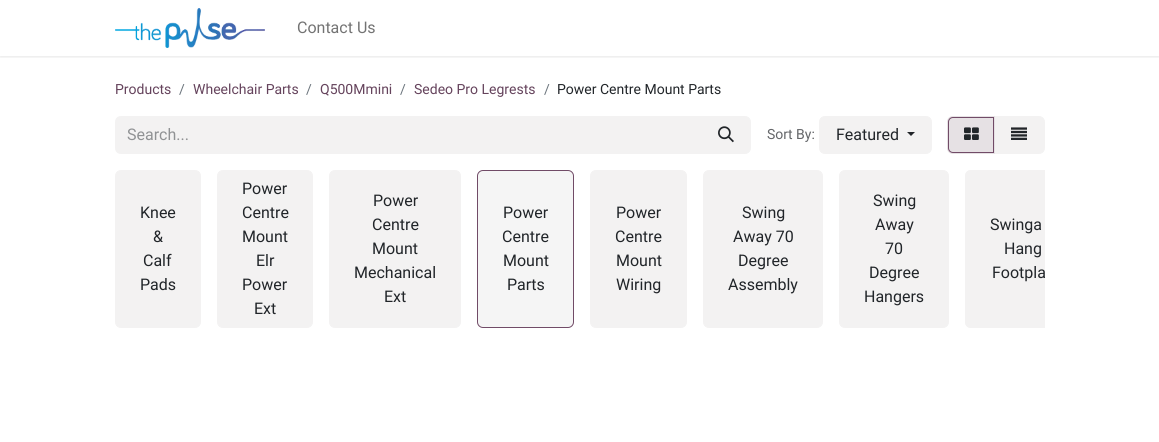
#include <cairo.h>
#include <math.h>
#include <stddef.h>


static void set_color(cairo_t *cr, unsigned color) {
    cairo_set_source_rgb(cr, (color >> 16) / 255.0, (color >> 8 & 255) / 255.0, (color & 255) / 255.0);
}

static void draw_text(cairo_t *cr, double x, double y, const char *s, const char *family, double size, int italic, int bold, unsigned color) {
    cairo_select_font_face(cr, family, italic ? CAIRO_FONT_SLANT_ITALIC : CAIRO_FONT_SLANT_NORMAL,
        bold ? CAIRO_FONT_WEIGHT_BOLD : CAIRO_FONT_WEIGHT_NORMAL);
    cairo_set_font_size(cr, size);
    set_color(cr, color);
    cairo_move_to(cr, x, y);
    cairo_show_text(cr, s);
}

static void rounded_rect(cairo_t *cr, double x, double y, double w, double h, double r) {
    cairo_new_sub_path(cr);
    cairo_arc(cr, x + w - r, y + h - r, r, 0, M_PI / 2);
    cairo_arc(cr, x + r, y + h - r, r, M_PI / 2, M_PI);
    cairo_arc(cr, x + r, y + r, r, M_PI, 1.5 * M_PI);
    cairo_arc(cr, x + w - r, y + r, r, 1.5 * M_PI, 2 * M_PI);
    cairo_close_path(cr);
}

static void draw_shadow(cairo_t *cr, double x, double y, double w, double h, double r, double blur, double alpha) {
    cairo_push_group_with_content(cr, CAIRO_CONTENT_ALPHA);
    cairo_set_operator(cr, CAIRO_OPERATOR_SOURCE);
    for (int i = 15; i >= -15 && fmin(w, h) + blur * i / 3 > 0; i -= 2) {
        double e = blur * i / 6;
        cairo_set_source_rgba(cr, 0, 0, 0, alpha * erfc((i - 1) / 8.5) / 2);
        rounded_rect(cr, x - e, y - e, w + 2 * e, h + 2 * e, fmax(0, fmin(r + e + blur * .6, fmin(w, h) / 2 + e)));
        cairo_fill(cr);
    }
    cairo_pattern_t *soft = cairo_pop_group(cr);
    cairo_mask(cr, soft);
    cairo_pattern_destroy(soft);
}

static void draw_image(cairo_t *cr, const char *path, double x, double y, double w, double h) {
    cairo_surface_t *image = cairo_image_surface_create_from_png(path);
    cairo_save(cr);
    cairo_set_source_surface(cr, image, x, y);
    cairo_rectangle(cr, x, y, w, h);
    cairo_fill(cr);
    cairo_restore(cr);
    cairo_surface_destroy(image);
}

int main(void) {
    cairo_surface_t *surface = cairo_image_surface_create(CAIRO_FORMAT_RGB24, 1159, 442);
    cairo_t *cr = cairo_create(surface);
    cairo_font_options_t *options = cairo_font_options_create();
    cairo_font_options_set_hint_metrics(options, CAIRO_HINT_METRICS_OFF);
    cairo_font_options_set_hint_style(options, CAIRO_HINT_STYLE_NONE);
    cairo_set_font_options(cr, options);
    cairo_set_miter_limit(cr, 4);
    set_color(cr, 0xFFFFFF);
    cairo_paint(cr);
    cairo_save(cr);
    cairo_rectangle(cr, 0, 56, 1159, 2);
    cairo_clip(cr);
    set_color(cr, 0x000000);
    draw_shadow(cr, 0, 1, 1159, 56, 0, 1.5, 0.1);
    cairo_restore(cr);
    draw_image(cr, "assets/img1.png", 115, 8, 150, 40);
    draw_text(cr, 297, 33, "Contact Us", "Roboto", 16, 0, 0, 0x737373);
    draw_text(cr, 115, 94, "Products", "Roboto", 14, 0, 0, 0x65435C);
    draw_text(cr, 179, 94, "/", "Roboto", 14, 0, 0, 0x6C757D);
    draw_text(cr, 193, 94, "Wheelchair Parts", "Roboto", 14, 0, 0, 0x65435C);
    draw_text(cr, 306, 94, "/", "Roboto", 14, 0, 0, 0x6C757D);
    draw_text(cr, 320, 94, "Q500Mmini", "Roboto", 14, 0, 0, 0x65435C);
    draw_text(cr, 400, 94, "/", "Roboto", 14, 0, 0, 0x6C757D);
    draw_text(cr, 414, 94, "Sedeo Pro Legrests", "Roboto", 14, 0, 0, 0x65435C);
    draw_text(cr, 544, 94, "/", "Roboto", 14, 0, 0, 0x6C757D);
    draw_text(cr, 557, 94, "Power Centre Mount Parts", "Roboto", 14, 0, 0, 0x212529);
    set_color(cr, 0xF3F2F2);
    cairo_new_path(cr);
    cairo_move_to(cr, 121, 116);
    cairo_line_to(cr, 702, 116);
    cairo_line_to(cr, 702, 154);
    cairo_line_to(cr, 121, 154);
    cairo_curve_to(cr, 117.5, 154, 115, 151.5, 115, 148);
    cairo_line_to(cr, 115, 122);
    cairo_curve_to(cr, 115, 118.5, 117.5, 116, 121, 116);
    cairo_close_path(cr);
    cairo_fill(cr);
    draw_text(cr, 127, 140, "Search...", "Roboto", 16, 0, 0, 0x909294);
    set_color(cr, 0xF3F2F2);
    cairo_new_path(cr);
    cairo_move_to(cr, 701.5, 116.5);
    cairo_line_to(cr, 745, 116.5);
    cairo_curve_to(cr, 748, 116.5, 750.5, 119, 750.5, 122);
    cairo_line_to(cr, 750.5, 148);
    cairo_curve_to(cr, 750.5, 151, 748, 153.5, 745, 153.5);
    cairo_line_to(cr, 701.5, 153.5);
    cairo_close_path(cr);
    cairo_fill_preserve(cr);
    cairo_set_line_width(cr, 1);
    cairo_stroke(cr);
    draw_image(cr, "assets/img2.png", 718, 126, 16, 17);
    draw_text(cr, 767, 139, "Sort By:", "Roboto", 14, 0, 0, 0x646669);
    set_color(cr, 0xF3F2F2);
    rounded_rect(cr, 819.5, 116.5, 112, 37, 5.5);
    cairo_fill_preserve(cr);
    cairo_stroke(cr);
    draw_text(cr, 836, 140, "Featured", "Roboto", 16, 0, 0, 0x212529);
    cairo_new_path(cr);
    cairo_move_to(cr, 907, 132);
    cairo_line_to(cr, 915, 132);
    cairo_line_to(cr, 911, 136);
    cairo_close_path(cr);
    cairo_fill(cr);
    set_color(cr, 0xF3F2F2);
    cairo_new_path(cr);
    cairo_move_to(cr, 994.5, 116.5);
    cairo_line_to(cr, 1039, 116.5);
    cairo_curve_to(cr, 1042, 116.5, 1044.5, 119, 1044.5, 122);
    cairo_line_to(cr, 1044.5, 148);
    cairo_curve_to(cr, 1044.5, 151, 1042, 153.5, 1039, 153.5);
    cairo_line_to(cr, 994.5, 153.5);
    cairo_close_path(cr);
    cairo_fill_preserve(cr);
    cairo_stroke(cr);
    set_color(cr, 0xE6E1E4);
    cairo_new_path(cr);
    cairo_move_to(cr, 953, 116);
    cairo_line_to(cr, 995, 116);
    cairo_line_to(cr, 995, 154);
    cairo_line_to(cr, 953, 154);
    cairo_curve_to(cr, 949.5, 154, 947, 151.5, 947, 148);
    cairo_line_to(cr, 947, 122);
    cairo_curve_to(cr, 947, 118.5, 949.5, 116, 953, 116);
    cairo_close_path(cr);
    cairo_fill(cr);
    cairo_new_path(cr);
    cairo_move_to(cr, 953, 117.5);
    cairo_line_to(cr, 993.5, 117.5);
    cairo_line_to(cr, 993.5, 152.5);
    cairo_line_to(cr, 953, 152.5);
    cairo_curve_to(cr, 950.5, 152.5, 948.5, 150.5, 948.5, 148);
    cairo_line_to(cr, 948.5, 122);
    cairo_curve_to(cr, 948.5, 119.5, 950.5, 117.5, 953, 117.5);
    cairo_close_path(cr);
    set_color(cr, 0x714B67);
    cairo_stroke(cr);
    draw_image(cr, "assets/img3.png", 964, 127, 15, 13);
    draw_image(cr, "assets/img4.png", 1011, 127, 16, 13);
    set_color(cr, 0xF3F2F2);
    rounded_rect(cr, 115.5, 170.5, 85, 157, 5.5);
    cairo_fill_preserve(cr);
    cairo_stroke(cr);
    draw_text(cr, 140, 218, "Knee", "Roboto", 16, 0, 0, 0x212529);
    draw_text(cr, 153, 242, "&", "Roboto", 16, 0, 0, 0x212529);
    draw_text(cr, 143, 266, "Calf", "Roboto", 16, 0, 0, 0x212529);
    draw_text(cr, 140, 290, "Pads", "Roboto", 16, 0, 0, 0x212529);
    set_color(cr, 0xF3F2F2);
    rounded_rect(cr, 217.5, 170.5, 95, 157, 5.5);
    cairo_fill_preserve(cr);
    cairo_stroke(cr);
    draw_text(cr, 242, 194, "Power", "Roboto", 16, 0, 0, 0x212529);
    draw_text(cr, 242, 218, "Centre", "Roboto", 16, 0, 0, 0x212529);
    draw_text(cr, 242, 242, "Mount", "Roboto", 16, 0, 0, 0x212529);
    draw_text(cr, 256, 266, "Elr", "Roboto", 16, 0, 0, 0x212529);
    draw_text(cr, 242, 290, "Power", "Roboto", 16, 0, 0, 0x212529);
    draw_text(cr, 254, 314, "Ext", "Roboto", 16, 0, 0, 0x212529);
    set_color(cr, 0xF3F2F2);
    rounded_rect(cr, 329.5, 170.5, 131, 157, 5.5);
    cairo_fill_preserve(cr);
    cairo_stroke(cr);
    draw_text(cr, 373, 206, "Power", "Roboto", 16, 0, 0, 0x212529);
    draw_text(cr, 372, 230, "Centre", "Roboto", 16, 0, 0, 0x212529);
    draw_text(cr, 372, 254, "Mount", "Roboto", 16, 0, 0, 0x212529);
    draw_text(cr, 354, 278, "Mechanical", "Roboto", 16, 0, 0, 0x212529);
    draw_text(cr, 384, 302, "Ext", "Roboto", 16, 0, 0, 0x212529);
    set_color(cr, 0xF5F5F5);
    rounded_rect(cr, 477.5, 170.5, 96, 157, 5.5);
    cairo_fill_preserve(cr);
    set_color(cr, 0x714B67);
    cairo_stroke(cr);
    draw_text(cr, 503, 218, "Power", "Roboto", 16, 0, 0, 0x212529);
    draw_text(cr, 502, 242, "Centre", "Roboto", 16, 0, 0, 0x212529);
    draw_text(cr, 503, 266, "Mount", "Roboto", 16, 0, 0, 0x212529);
    draw_text(cr, 507, 290, "Parts", "Roboto", 16, 0, 0, 0x212529);
    set_color(cr, 0xF3F2F2);
    rounded_rect(cr, 590.5, 170.5, 96, 157, 5.5);
    cairo_fill_preserve(cr);
    cairo_stroke(cr);
    draw_text(cr, 616, 218, "Power", "Roboto", 16, 0, 0, 0x212529);
    draw_text(cr, 615, 242, "Centre", "Roboto", 16, 0, 0, 0x212529);
    draw_text(cr, 616, 266, "Mount", "Roboto", 16, 0, 0, 0x212529);
    draw_text(cr, 616, 290, "Wiring", "Roboto", 16, 0, 0, 0x212529);
    set_color(cr, 0xF3F2F2);
    rounded_rect(cr, 703.5, 170.5, 119, 157, 5.5);
    cairo_fill_preserve(cr);
    cairo_stroke(cr);
    draw_text(cr, 742, 218, "Swing", "Roboto", 16, 0, 0, 0x212529);
    draw_text(cr, 733, 242, "Away 70", "Roboto", 16, 0, 0, 0x212529);
    draw_text(cr, 738, 266, "Degree", "Roboto", 16, 0, 0, 0x212529);
    draw_text(cr, 728, 290, "Assembly", "Roboto", 16, 0, 0, 0x212529);
    set_color(cr, 0xF3F2F2);
    rounded_rect(cr, 839.5, 170.5, 109, 157, 5.5);
    cairo_fill_preserve(cr);
    cairo_stroke(cr);
    draw_text(cr, 873, 206, "Swing", "Roboto", 16, 0, 0, 0x212529);
    draw_text(cr, 875, 230, "Away", "Roboto", 16, 0, 0, 0x212529);
    draw_text(cr, 885, 254, "70", "Roboto", 16, 0, 0, 0x212529);
    draw_text(cr, 869, 278, "Degree", "Roboto", 16, 0, 0, 0x212529);
    draw_text(cr, 864, 302, "Hangers", "Roboto", 16, 0, 0, 0x212529);
    set_color(cr, 0xF3F2F2);
    cairo_new_path(cr);
    cairo_move_to(cr, 971, 170);
    cairo_line_to(cr, 1045, 170);
    cairo_line_to(cr, 1045, 328);
    cairo_line_to(cr, 971, 328);
    cairo_curve_to(cr, 967.5, 328, 965, 325.5, 965, 322);
    cairo_line_to(cr, 965, 176);
    cairo_curve_to(cr, 965, 172.5, 967.5, 170, 971, 170);
    cairo_close_path(cr);
    cairo_fill(cr);
    cairo_save(cr);
    cairo_rectangle(cr, 115, 170, 930, 162);
    cairo_clip(cr);
    rounded_rect(cr, 965.5, 170.5, 130, 157, 5.5);
    cairo_stroke(cr);
    cairo_restore(cr);
    draw_text(cr, 990, 230, "Swinga", "Roboto", 16, 0, 0, 0x212529);
    draw_text(cr, 1004, 254, "Hang", "Roboto", 16, 0, 0, 0x212529);
    cairo_save(cr);
    cairo_rectangle(cr, 115, 170, 930, 162);
    cairo_clip(cr);
    draw_text(cr, 992, 278, "Footpla", "Roboto", 16, 0, 0, 0x212529);
    cairo_restore(cr);
    cairo_surface_write_to_png(surface, "output.png");
    cairo_font_options_destroy(options);
    cairo_destroy(cr);
    cairo_surface_destroy(surface);
    return 0;
}
